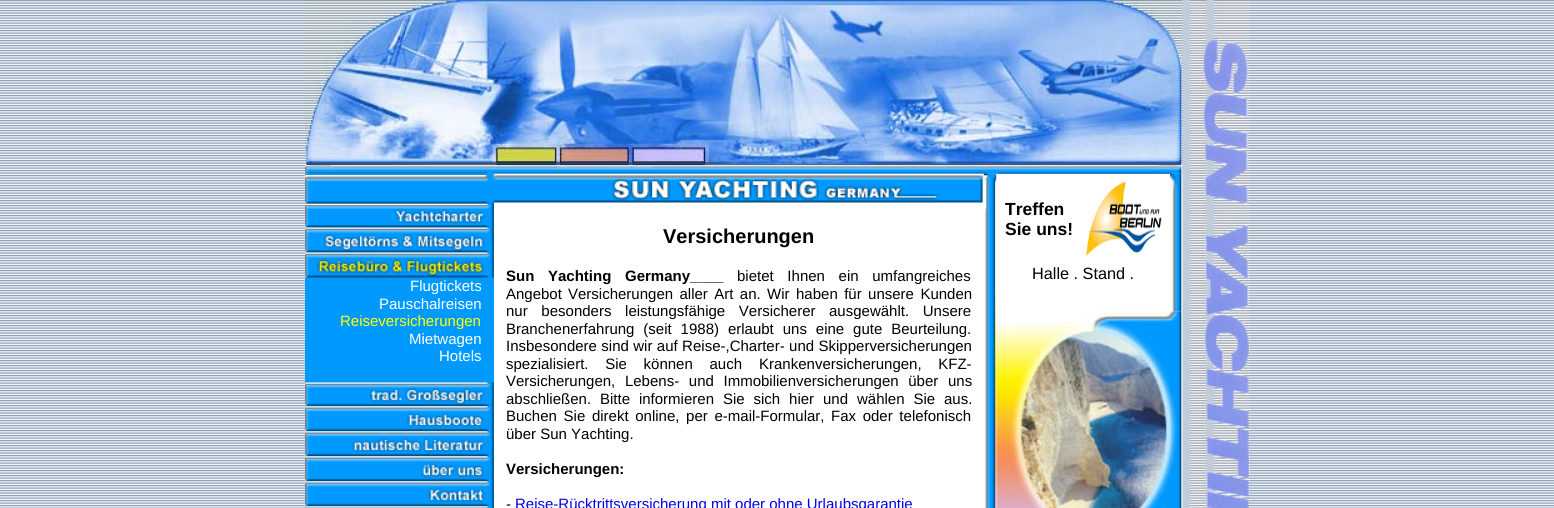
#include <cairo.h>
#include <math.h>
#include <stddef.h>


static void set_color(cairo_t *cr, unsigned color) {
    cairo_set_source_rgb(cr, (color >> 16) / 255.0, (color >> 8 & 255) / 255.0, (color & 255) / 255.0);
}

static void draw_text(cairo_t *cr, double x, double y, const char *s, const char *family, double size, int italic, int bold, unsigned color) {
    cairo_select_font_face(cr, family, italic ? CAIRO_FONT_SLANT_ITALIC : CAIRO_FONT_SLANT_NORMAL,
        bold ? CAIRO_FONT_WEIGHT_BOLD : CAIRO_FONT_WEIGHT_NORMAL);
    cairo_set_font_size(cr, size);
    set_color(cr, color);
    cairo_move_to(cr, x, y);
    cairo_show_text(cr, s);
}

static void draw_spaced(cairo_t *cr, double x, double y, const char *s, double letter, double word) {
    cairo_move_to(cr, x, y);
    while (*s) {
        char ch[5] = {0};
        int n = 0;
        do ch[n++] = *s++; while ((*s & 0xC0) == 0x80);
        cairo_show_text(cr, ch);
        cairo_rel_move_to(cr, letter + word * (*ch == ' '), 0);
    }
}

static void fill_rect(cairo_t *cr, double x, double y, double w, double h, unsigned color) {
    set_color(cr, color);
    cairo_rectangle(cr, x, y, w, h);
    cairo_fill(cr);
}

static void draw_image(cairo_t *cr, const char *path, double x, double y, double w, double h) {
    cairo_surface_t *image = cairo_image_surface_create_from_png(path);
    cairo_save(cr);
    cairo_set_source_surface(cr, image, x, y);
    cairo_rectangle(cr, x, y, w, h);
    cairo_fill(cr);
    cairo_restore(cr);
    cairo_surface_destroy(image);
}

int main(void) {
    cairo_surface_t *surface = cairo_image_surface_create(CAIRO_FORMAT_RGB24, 1554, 508);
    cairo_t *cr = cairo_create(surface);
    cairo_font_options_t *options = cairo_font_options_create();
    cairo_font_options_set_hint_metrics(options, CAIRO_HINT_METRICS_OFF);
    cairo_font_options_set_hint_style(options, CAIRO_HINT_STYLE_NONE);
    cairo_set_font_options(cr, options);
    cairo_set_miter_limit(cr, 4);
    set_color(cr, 0xFFFFFF);
    cairo_paint(cr);
    draw_image(cr, "assets/img1.png", 0, 0, 1554, 508);
    draw_image(cr, "assets/img2.png", 305, 0, 877, 164);
    draw_image(cr, "assets/img3.png", 305, 163, 878, 11);
    fill_rect(cr, 305, 174, 189, 334, 0x009AFF);
    draw_image(cr, "assets/img4.png", 305, 175, 189, 29);
    draw_image(cr, "assets/img5.png", 305, 203, 189, 25);
    draw_image(cr, "assets/img6.png", 305, 227, 189, 26);
    draw_image(cr, "assets/img7.png", 305, 252, 189, 26);
    draw_text(cr, 410, 291, "Flugtickets", "Liberation Sans", 15, 0, 0, 0xFFFFFF);
    draw_text(cr, 379, 309, "Pauschalreisen", "Liberation Sans", 15, 0, 0, 0xFFFFFF);
    draw_text(cr, 340, 326, "Reiseversicherungen", "Liberation Sans", 15, 0, 0, 0xFFFF00);
    draw_text(cr, 409, 344, "Mietwagen", "Liberation Sans", 15, 0, 0, 0xFFFFFF);
    draw_text(cr, 439, 361, "Hotels", "Liberation Sans", 15, 0, 0, 0xFFFFFF);
    draw_image(cr, "assets/img8.png", 305, 382, 189, 25);
    draw_image(cr, "assets/img9.png", 305, 406, 189, 26);
    draw_image(cr, "assets/img10.png", 305, 431, 189, 26);
    draw_image(cr, "assets/img11.png", 305, 456, 189, 26);
    draw_image(cr, "assets/img12.png", 305, 481, 189, 26);
    draw_image(cr, "assets/img13.png", 305, 506, 189, 2);
    fill_rect(cr, 494, 174, 490, 334, 0xFFFFFF);
    draw_image(cr, "assets/img14.png", 493, 173, 491, 30);
    draw_text(cr, 663, 243, "Versicherungen", "Liberation Sans", 20, 0, 1, 0x000000);
    cairo_set_font_size(cr, 15);
    draw_spaced(cr, 506, 281, "Sun Yachting Germany____", 0, 9.5);
    cairo_select_font_face(cr, "Liberation Sans", CAIRO_FONT_SLANT_NORMAL, CAIRO_FONT_WEIGHT_NORMAL);
    draw_spaced(cr, 737, 281, "bietet Ihnen ein umfangreiches", 0, 9.5);
    draw_text(cr, 506, 299, "Angebot", "Liberation Sans", 15, 0, 0, 0x000000);
    draw_spaced(cr, 568, 299, "Versicherungen aller Art an. Wir haben für unsere Kunden", 0, 2.25);
    draw_spaced(cr, 506, 316, "nur besonders leistungsfähige Versicherer", 0, 9.5);
    draw_spaced(cr, 829, 316, "ausgewählt. Unsere", 0, 9.5);
    draw_spaced(cr, 506, 334, "Branchenerfahrung (seit 1988) erlaubt uns eine gute Beurteilung.", 0, 4.75);
    draw_spaced(cr, 506, 351, "Insbesondere sind wir auf Reise-,Charter- und Skipperversicherungen", 0, 0.25);
    draw_spaced(cr, 506, 369, "spezialisiert. Sie können auch", 0, 12.5);
    draw_spaced(cr, 759, 369, "Krankenversicherungen, KFZ-", 0, 12.5);
    draw_spaced(cr, 506, 386, "Versicherungen, Lebens- und Immobilienversicherungen über uns", 0, 5.5);
    draw_text(cr, 506, 404, "abschließen.", "Liberation Sans", 15, 0, 0, 0x000000);
    draw_spaced(cr, 600, 404, "Bitte informieren Sie sich hier und wählen Sie aus.", 0, 4.75);
    draw_spaced(cr, 506, 421, "Buchen Sie direkt online, per e-mail-Formular,", 0, 2.5);
    draw_spaced(cr, 831, 421, "Fax oder telefonisch", 0, 2.5);
    draw_text(cr, 506, 439, "über Sun Yachting.", "Liberation Sans", 15, 0, 0, 0x000000);
    draw_text(cr, 506, 474, "Versicherungen:", "Liberation Sans", 15, 0, 1, 0x000000);
    draw_text(cr, 506, 509, "-", "Liberation Sans", 15, 0, 0, 0x000000);
    draw_text(cr, 515, 509, "Reise-Rücktrittsversicherung mit oder ohne Urlaubsgarantie", "Liberation Sans", 15, 0, 0, 0x0000EE);
    fill_rect(cr, 996, 174, 187, 334, 0xFFFFFF);
    draw_image(cr, "assets/img15.png", 983, 173, 14, 335);
    draw_text(cr, 1005, 215, "Treffen", "Liberation Sans", 17.5, 0, 1, 0x000000);
    draw_text(cr, 1005, 235, "Sie uns!", "Liberation Sans", 17.5, 0, 1, 0x000000);
    draw_image(cr, "assets/img16.png", 1086, 181, 76, 76);
    draw_text(cr, 1032, 279, "Halle . Stand .", "Liberation Sans", 16.25, 0, 0, 0x000000);
    draw_image(cr, "assets/img17.png", 1170, 173, 13, 139);
    draw_image(cr, "assets/img18.png", 996, 311, 187, 197);
    draw_image(cr, "assets/img19.png", 1182, 0, 68, 508);
    cairo_surface_write_to_png(surface, "output.png");
    cairo_font_options_destroy(options);
    cairo_destroy(cr);
    cairo_surface_destroy(surface);
    return 0;
}
